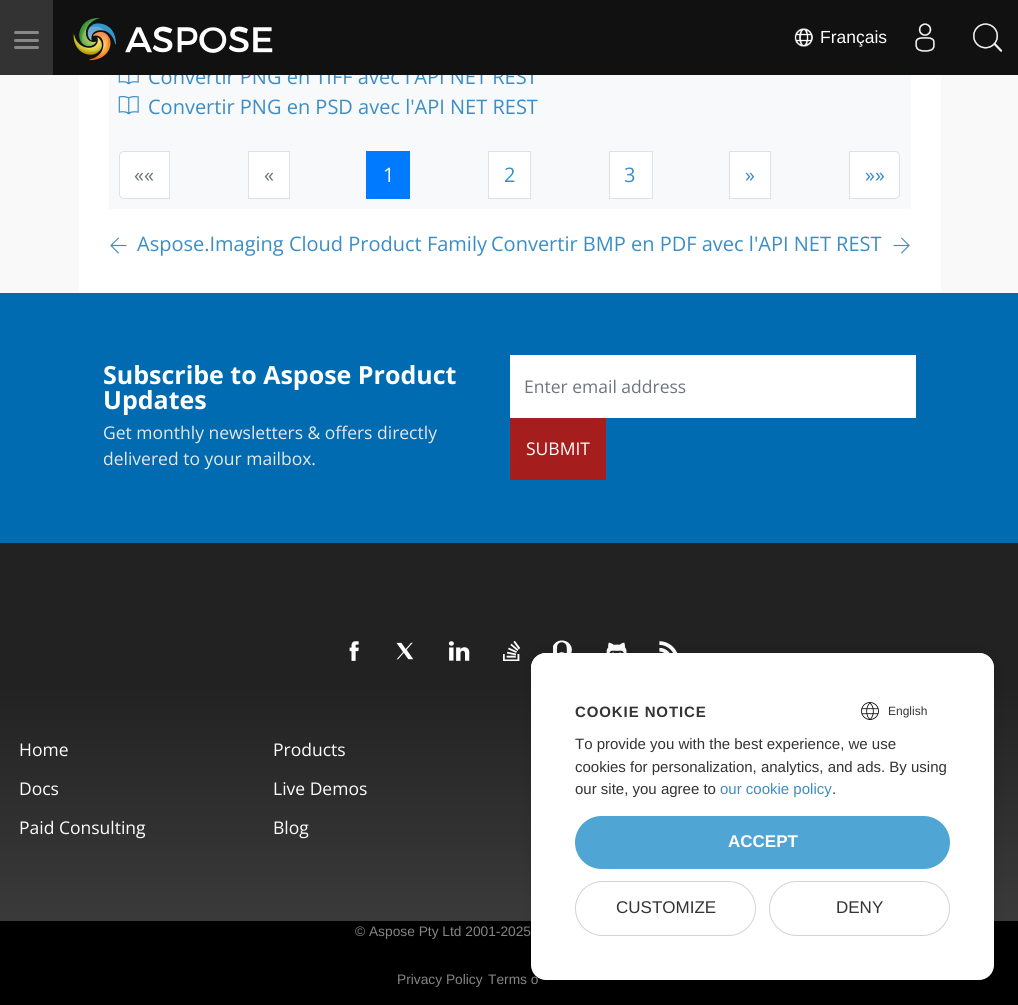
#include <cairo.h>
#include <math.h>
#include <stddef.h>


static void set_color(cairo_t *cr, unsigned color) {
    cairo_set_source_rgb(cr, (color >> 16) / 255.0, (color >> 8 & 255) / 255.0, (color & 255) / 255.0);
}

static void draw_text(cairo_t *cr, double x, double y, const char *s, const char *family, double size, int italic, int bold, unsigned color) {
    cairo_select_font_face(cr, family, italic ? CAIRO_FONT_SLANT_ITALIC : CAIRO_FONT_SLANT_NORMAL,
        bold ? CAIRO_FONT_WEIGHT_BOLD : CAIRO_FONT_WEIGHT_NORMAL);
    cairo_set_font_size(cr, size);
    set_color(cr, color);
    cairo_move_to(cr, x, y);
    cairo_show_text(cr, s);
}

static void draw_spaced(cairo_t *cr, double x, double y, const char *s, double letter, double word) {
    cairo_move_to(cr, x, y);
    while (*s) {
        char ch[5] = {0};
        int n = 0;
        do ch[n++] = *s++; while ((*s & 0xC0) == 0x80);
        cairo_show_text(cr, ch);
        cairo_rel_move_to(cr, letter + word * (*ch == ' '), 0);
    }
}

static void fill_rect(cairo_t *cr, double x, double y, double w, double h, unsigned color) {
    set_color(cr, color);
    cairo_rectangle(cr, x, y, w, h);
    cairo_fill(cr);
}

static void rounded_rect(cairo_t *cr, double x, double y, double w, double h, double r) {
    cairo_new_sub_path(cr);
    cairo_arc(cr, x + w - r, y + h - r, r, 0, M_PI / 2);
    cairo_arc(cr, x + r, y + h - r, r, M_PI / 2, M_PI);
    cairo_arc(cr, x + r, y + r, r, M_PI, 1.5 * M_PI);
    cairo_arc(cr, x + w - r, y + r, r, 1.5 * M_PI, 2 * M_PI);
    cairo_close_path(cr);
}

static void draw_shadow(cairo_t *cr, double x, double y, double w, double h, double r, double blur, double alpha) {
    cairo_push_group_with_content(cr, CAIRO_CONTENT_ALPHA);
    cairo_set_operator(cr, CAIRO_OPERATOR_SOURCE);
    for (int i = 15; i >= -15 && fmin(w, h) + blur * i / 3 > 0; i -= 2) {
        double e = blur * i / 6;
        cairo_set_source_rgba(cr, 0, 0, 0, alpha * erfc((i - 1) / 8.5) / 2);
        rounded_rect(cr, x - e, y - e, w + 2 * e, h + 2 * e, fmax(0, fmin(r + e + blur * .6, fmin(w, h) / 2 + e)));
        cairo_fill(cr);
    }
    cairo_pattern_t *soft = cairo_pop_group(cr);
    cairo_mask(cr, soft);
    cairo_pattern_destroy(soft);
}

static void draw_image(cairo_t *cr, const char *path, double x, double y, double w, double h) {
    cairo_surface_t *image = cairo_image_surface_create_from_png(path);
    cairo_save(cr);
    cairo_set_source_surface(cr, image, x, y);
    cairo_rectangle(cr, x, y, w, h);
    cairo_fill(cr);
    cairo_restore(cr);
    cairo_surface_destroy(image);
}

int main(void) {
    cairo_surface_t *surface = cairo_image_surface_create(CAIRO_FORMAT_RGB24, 1018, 1005);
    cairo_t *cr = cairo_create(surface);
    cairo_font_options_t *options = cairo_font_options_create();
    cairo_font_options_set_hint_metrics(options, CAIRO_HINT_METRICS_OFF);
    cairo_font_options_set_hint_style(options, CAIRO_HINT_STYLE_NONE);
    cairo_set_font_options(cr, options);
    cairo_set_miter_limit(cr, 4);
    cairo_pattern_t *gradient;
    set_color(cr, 0xF9F9F9);
    cairo_paint(cr);
    fill_rect(cr, 79, 75, 862, 218, 0xFFFFFF);
    fill_rect(cr, 109, 75, 802, 134, 0xF8F9FA);
    draw_text(cr, 148, 84, "Convertir PNG en TIFF avec l'API NET REST", "Open Sans", 20, 0, 0, 0x3C8DC5);
    fill_rect(cr, 53, 0, 965, 75, 0x111111);
    fill_rect(cr, 0, 0, 53, 75, 0x333333);
    set_color(cr, 0x888888);
    rounded_rect(cr, 14, 31, 25, 3, 1.5);
    cairo_fill(cr);
    rounded_rect(cr, 14, 39, 25, 3, 1.5);
    cairo_fill(cr);
    rounded_rect(cr, 14, 46, 25, 3, 1.5);
    cairo_fill(cr);
    draw_image(cr, "assets/img1.png", 73, 18, 200, 43);
    draw_image(cr, "assets/img2.png", 794, 28, 19, 19);
    draw_text(cr, 820, 43, "Français", "Liberation Sans", 17.5, 0, 0, 0xFEFEFE);
    draw_image(cr, "assets/img3.png", 915, 23, 20, 29);
    draw_image(cr, "assets/img4.png", 973, 23, 30, 29);
    draw_image(cr, "assets/img5.png", 118, 75, 21, 10);
    draw_image(cr, "assets/img6.png", 118, 96, 21, 19);
    draw_text(cr, 148, 114, "Convertir PNG en PSD avec l'API NET REST", "Open Sans", 20, 0, 0, 0x3C8DC5);
    set_color(cr, 0xFFFFFF);
    cairo_new_path(cr);
    cairo_move_to(cr, 124, 151.5);
    cairo_line_to(cr, 169.5, 151.5);
    cairo_line_to(cr, 169.5, 198.5);
    cairo_line_to(cr, 124, 198.5);
    cairo_curve_to(cr, 121.5, 198.5, 119.5, 196.5, 119.5, 194);
    cairo_line_to(cr, 119.5, 156);
    cairo_curve_to(cr, 119.5, 153.5, 121.5, 151.5, 124, 151.5);
    cairo_close_path(cr);
    cairo_fill_preserve(cr);
    set_color(cr, 0xDEE2E6);
    cairo_set_line_width(cr, 1);
    cairo_stroke(cr);
    draw_text(cr, 134, 182, "««", "Open Sans", 20, 0, 0, 0x6C757D);
    set_color(cr, 0xFFFFFF);
    cairo_rectangle(cr, 248.5, 151.5, 41, 47);
    cairo_fill_preserve(cr);
    set_color(cr, 0xDEE2E6);
    cairo_stroke(cr);
    draw_text(cr, 264, 182, "«", "Open Sans", 20, 0, 0, 0x6C757D);
    fill_rect(cr, 366, 151, 44, 48, 0x007BFF);
    draw_text(cr, 383, 182, "1", "Open Sans", 20, 0, 0, 0xFEFEFE);
    set_color(cr, 0xFFFFFF);
    cairo_rectangle(cr, 488.5, 151.5, 42, 47);
    cairo_fill_preserve(cr);
    set_color(cr, 0xDEE2E6);
    cairo_stroke(cr);
    draw_text(cr, 504, 182, "2", "Open Sans", 20, 0, 0, 0x3C8DC5);
    set_color(cr, 0xFFFFFF);
    cairo_rectangle(cr, 609.5, 151.5, 43, 47);
    cairo_fill_preserve(cr);
    set_color(cr, 0xDEE2E6);
    cairo_stroke(cr);
    draw_text(cr, 624, 182, "3", "Open Sans", 20, 0, 0, 0x3C8DC5);
    set_color(cr, 0xFFFFFF);
    cairo_rectangle(cr, 729.5, 151.5, 41, 47);
    cairo_fill_preserve(cr);
    set_color(cr, 0xDEE2E6);
    cairo_stroke(cr);
    draw_text(cr, 745, 182, "»", "Open Sans", 20, 0, 0, 0x3C8DC5);
    set_color(cr, 0xFFFFFF);
    cairo_new_path(cr);
    cairo_move_to(cr, 849.5, 151.5);
    cairo_line_to(cr, 895, 151.5);
    cairo_curve_to(cr, 897.5, 151.5, 899.5, 153.5, 899.5, 156);
    cairo_line_to(cr, 899.5, 194);
    cairo_curve_to(cr, 899.5, 196.5, 897.5, 198.5, 895, 198.5);
    cairo_line_to(cr, 849.5, 198.5);
    cairo_close_path(cr);
    cairo_fill_preserve(cr);
    set_color(cr, 0xDEE2E6);
    cairo_stroke(cr);
    draw_text(cr, 865, 182, "»»", "Open Sans", 20, 0, 0, 0x3C8DC5);
    draw_image(cr, "assets/img7.png", 110, 237, 17, 17);
    draw_text(cr, 137, 251, "Aspose.Imaging Cloud Product Family", "Open Sans", 20, 0, 0, 0x3C8DC5);
    draw_text(cr, 491, 251, "Convertir BMP en PDF avec l'API NET REST", "Open Sans", 20, 0, 0, 0x3C8DC5);
    draw_image(cr, "assets/img8.png", 893, 237, 17, 17);
    fill_rect(cr, 0, 293, 1018, 250, 0x006BB0);
    draw_text(cr, 103, 384, "Subscribe to Aspose Product", "Open Sans", 25, 0, 1, 0xFEFEFE);
    draw_text(cr, 103, 409, "Updates", "Open Sans", 25, 0, 1, 0xFEFEFE);
    draw_text(cr, 103, 439, "Get monthly newsletters & offers directly", "Open Sans", 17.5, 0, 0, 0xE8E8E8);
    draw_text(cr, 103, 465, "delivered to your mailbox.", "Open Sans", 17.5, 0, 0, 0xE8E8E8);
    fill_rect(cr, 510, 355, 406, 63, 0xFFFFFF);
    draw_text(cr, 524, 393, "Enter email address", "Open Sans", 17.5, 0, 0, 0x6C757D);
    fill_rect(cr, 510, 418, 96, 62, 0xA51E1D);
    draw_text(cr, 526, 455, "SUBMIT", "Open Sans", 17.5, 0, 0, 0xFEFEFE);
    gradient = cairo_pattern_create_linear(509, 542, 509, 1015);
    cairo_pattern_add_color_stop_rgba(gradient, 0.3, 0.133, 0.133, 0.133, 1);
    cairo_pattern_add_color_stop_rgba(gradient, 1, 0.267, 0.267, 0.267, 1);
    cairo_set_source(cr, gradient);
    cairo_pattern_destroy(gradient);
    cairo_rectangle(cr, 0, 543, 1018, 378);
    cairo_fill(cr);
    draw_image(cr, "assets/img9.png", 349, 641, 10, 20);
    draw_image(cr, "assets/img10.png", 396, 642, 18, 18);
    draw_image(cr, "assets/img11.png", 448, 641, 22, 20);
    draw_image(cr, "assets/img12.png", 503, 640, 18, 21);
    draw_image(cr, "assets/img13.png", 553, 640, 19, 13);
    draw_image(cr, "assets/img14.png", 606, 642, 21, 11);
    draw_image(cr, "assets/img15.png", 659, 641, 19, 12);
    draw_text(cr, 19, 756, "Home", "Open Sans", 17.5, 0, 0, 0xFEFEFE);
    draw_text(cr, 273, 756, "Products", "Open Sans", 17.5, 0, 0, 0xFEFEFE);
    draw_text(cr, 19, 795, "Docs", "Open Sans", 17.5, 0, 0, 0xFEFEFE);
    draw_text(cr, 273, 795, "Live Demos", "Open Sans", 17.5, 0, 0, 0xFEFEFE);
    draw_text(cr, 19, 834, "Paid Consulting", "Open Sans", 17.5, 0, 0, 0xFEFEFE);
    draw_text(cr, 273, 834, "Blog", "Open Sans", 17.5, 0, 0, 0xFEFEFE);
    fill_rect(cr, 0, 921, 1018, 84, 0x000000);
    draw_text(cr, 355, 936, "© Aspose Pty Ltd 2001-2025", "Liberation Sans", 13.75, 0, 0, 0x868484);
    draw_text(cr, 397, 984, "Privacy Policy", "Liberation Sans", 13.75, 0, 0, 0x868484);
    draw_text(cr, 488, 984, "Terms o", "Liberation Sans", 13.75, 0, 0, 0x868484);
    set_color(cr, 0x000000);
    draw_shadow(cr, 531, 653, 463, 327, 15, 8, 0.1);
    set_color(cr, 0xFFFFFF);
    rounded_rect(cr, 531, 653, 463, 327, 15);
    cairo_fill(cr);
    cairo_new_path(cr);
    cairo_move_to(cr, 546, 653);
    cairo_line_to(cr, 979, 653);
    cairo_curve_to(cr, 987.5, 653, 994, 659.5, 994, 668);
    cairo_line_to(cr, 994, 728);
    cairo_line_to(cr, 531, 728);
    cairo_line_to(cr, 531, 668);
    cairo_curve_to(cr, 531, 659.5, 537.5, 653, 546, 653);
    cairo_close_path(cr);
    cairo_fill(cr);
    cairo_select_font_face(cr, "Liberation Sans", CAIRO_FONT_SLANT_NORMAL, CAIRO_FONT_WEIGHT_BOLD);
    cairo_set_font_size(cr, 15);
    set_color(cr, 0x333333);
    draw_spaced(cr, 575, 717, "COOKIE NOTICE", 0.9, 0);
    draw_image(cr, "assets/img16.png", 861, 702, 18, 18);
    draw_text(cr, 888, 715, "English", "Liberation Sans", 12, 0, 0, 0x333333);
    draw_text(cr, 575, 749, "To provide you with the best experience, we use", "Liberation Sans", 15, 0, 0, 0x333333);
    draw_text(cr, 575, 772, "cookies for personalization, analytics, and ads. By using", "Liberation Sans", 15, 0, 0, 0x333333);
    draw_text(cr, 575, 794, "our site, you agree to", "Liberation Sans", 15, 0, 0, 0x333333);
    draw_text(cr, 720, 794, "our cookie policy", "Liberation Sans", 15, 0, 0, 0x3C8DC5);
    draw_text(cr, 832, 794, ".", "Liberation Sans", 15, 0, 0, 0x333333);
    set_color(cr, 0x4FA5D3);
    rounded_rect(cr, 575, 816, 375, 53, 26.5);
    cairo_fill(cr);
    draw_text(cr, 728, 847, "ACCEPT", "Liberation Sans", 17, 0, 1, 0xFEFEFE);
    rounded_rect(cr, 575.5, 881.5, 180, 54, 27);
    set_color(cr, 0xD3D3D3);
    cairo_stroke(cr);
    draw_text(cr, 616, 913, "CUSTOMIZE", "Liberation Sans", 17, 0, 0, 0x333333);
    rounded_rect(cr, 769.5, 881.5, 180, 54, 27);
    set_color(cr, 0xD3D3D3);
    cairo_stroke(cr);
    draw_text(cr, 836, 913, "DENY", "Liberation Sans", 17, 0, 0, 0x333333);
    cairo_surface_write_to_png(surface, "output.png");
    cairo_font_options_destroy(options);
    cairo_destroy(cr);
    cairo_surface_destroy(surface);
    return 0;
}
